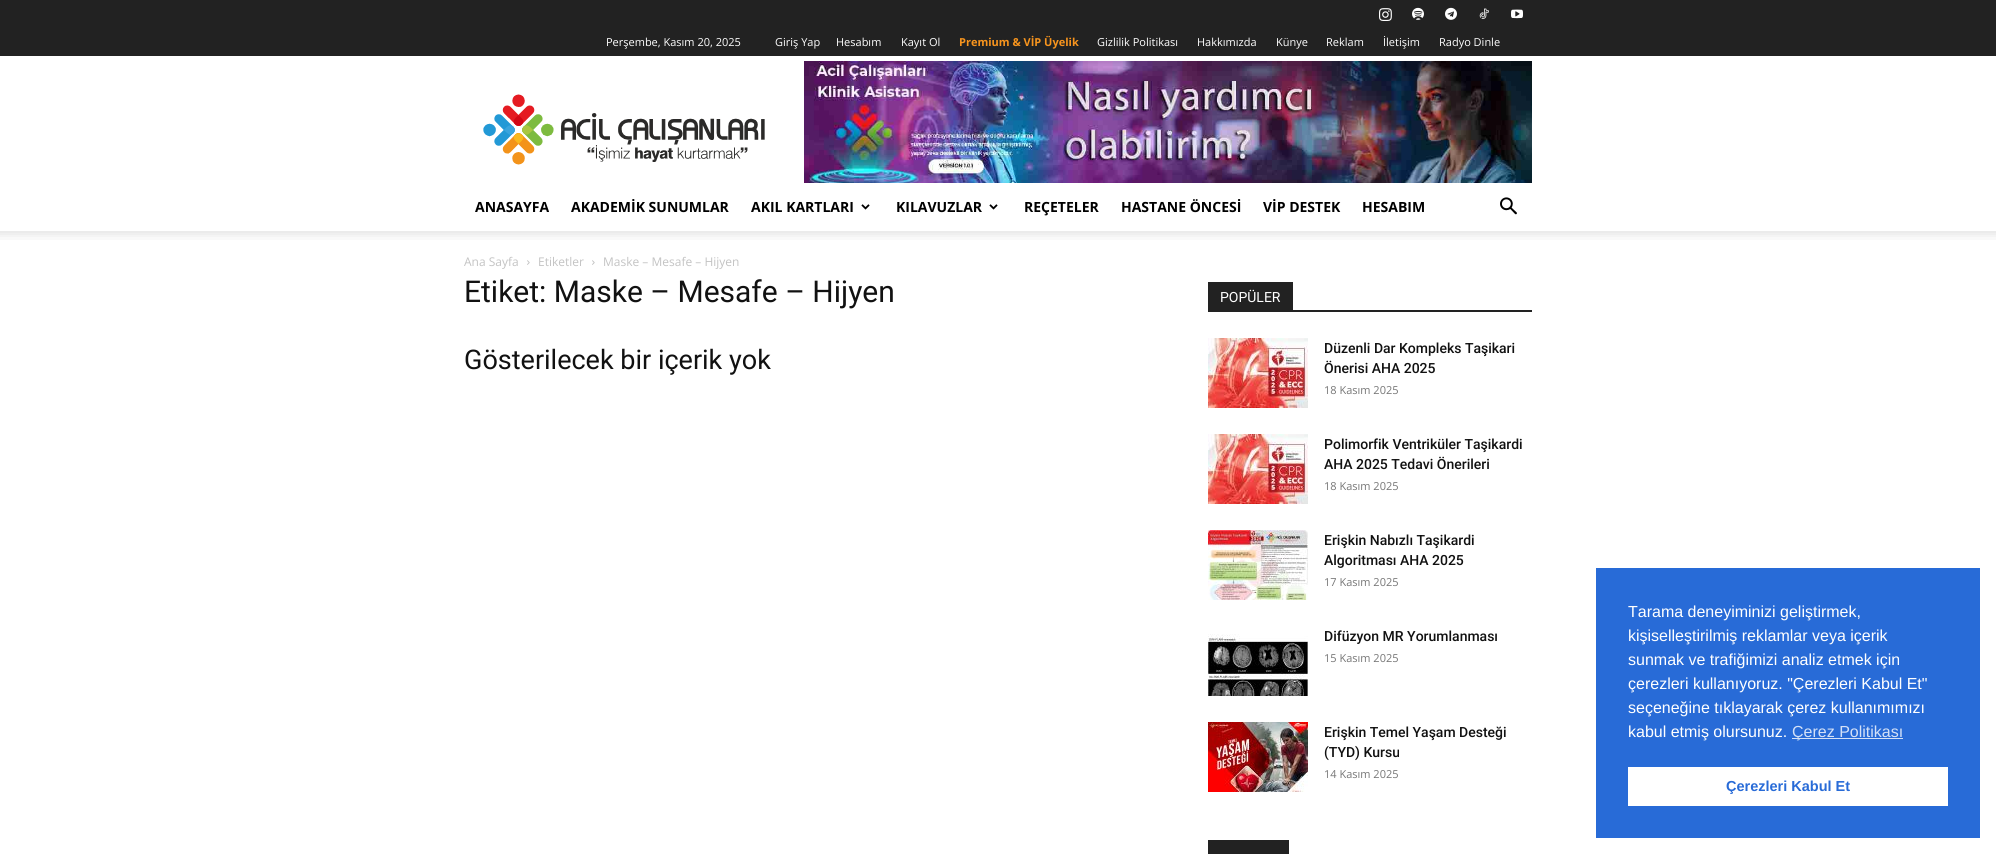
#include <cairo.h>
#include <math.h>
#include <stddef.h>


static void set_color(cairo_t *cr, unsigned color) {
    cairo_set_source_rgb(cr, (color >> 16) / 255.0, (color >> 8 & 255) / 255.0, (color & 255) / 255.0);
}

static void draw_text(cairo_t *cr, double x, double y, const char *s, const char *family, double size, int italic, int bold, unsigned color) {
    cairo_select_font_face(cr, family, italic ? CAIRO_FONT_SLANT_ITALIC : CAIRO_FONT_SLANT_NORMAL,
        bold ? CAIRO_FONT_WEIGHT_BOLD : CAIRO_FONT_WEIGHT_NORMAL);
    cairo_set_font_size(cr, size);
    set_color(cr, color);
    cairo_move_to(cr, x, y);
    cairo_show_text(cr, s);
}

static void fill_rect(cairo_t *cr, double x, double y, double w, double h, unsigned color) {
    set_color(cr, color);
    cairo_rectangle(cr, x, y, w, h);
    cairo_fill(cr);
}

static void draw_image(cairo_t *cr, const char *path, double x, double y, double w, double h) {
    cairo_surface_t *image = cairo_image_surface_create_from_png(path);
    cairo_save(cr);
    cairo_set_source_surface(cr, image, x, y);
    cairo_rectangle(cr, x, y, w, h);
    cairo_fill(cr);
    cairo_restore(cr);
    cairo_surface_destroy(image);
}

int main(void) {
    cairo_surface_t *surface = cairo_image_surface_create(CAIRO_FORMAT_RGB24, 1996, 854);
    cairo_t *cr = cairo_create(surface);
    cairo_font_options_t *options = cairo_font_options_create();
    cairo_font_options_set_hint_metrics(options, CAIRO_HINT_METRICS_OFF);
    cairo_font_options_set_hint_style(options, CAIRO_HINT_STYLE_NONE);
    cairo_set_font_options(cr, options);
    cairo_set_miter_limit(cr, 4);
    set_color(cr, 0xFFFFFF);
    cairo_paint(cr);
    fill_rect(cr, 0, 0, 1996, 56, 0x222222);
    draw_image(cr, "assets/img1.png", 1379, 8, 13, 13);
    draw_image(cr, "assets/img2.png", 1412, 7, 12, 13);
    draw_image(cr, "assets/img3.png", 1445, 7, 12, 13);
    draw_image(cr, "assets/img4.png", 1479, 8, 10, 11);
    draw_image(cr, "assets/img5.png", 1511, 9, 12, 10);
    draw_text(cr, 606, 46, "Perşembe, Kasım 20, 2025", "Open Sans", 11, 0, 0, 0xFFFFFF);
    draw_text(cr, 775, 46, "Giriş Yap", "Open Sans", 11, 0, 0, 0xFFFFFF);
    draw_text(cr, 836, 46, "Hesabım", "Open Sans", 11, 0, 0, 0xFFFFFF);
    draw_text(cr, 901, 46, "Kayıt Ol", "Open Sans", 11, 0, 0, 0xFFFFFF);
    draw_text(cr, 959, 46, "Premium & VİP Üyelik", "Open Sans", 11, 0, 1, 0xF7941D);
    draw_text(cr, 1097, 46, "Gizlilik Politikası", "Open Sans", 11, 0, 0, 0xFFFFFF);
    draw_text(cr, 1197, 46, "Hakkımızda", "Open Sans", 11, 0, 0, 0xFFFFFF);
    draw_text(cr, 1276, 46, "Künye", "Open Sans", 11, 0, 0, 0xFFFFFF);
    draw_text(cr, 1326, 46, "Reklam", "Open Sans", 11, 0, 0, 0xFFFFFF);
    draw_text(cr, 1383, 46, "İletişim", "Open Sans", 11, 0, 0, 0xFFFFFF);
    draw_text(cr, 1439, 46, "Radyo Dinle", "Open Sans", 11, 0, 0, 0xFFFFFF);
    draw_image(cr, "assets/img6.png", 483, 94, 282, 71);
    draw_image(cr, "assets/img7.png", 804, 61, 728, 122);
    draw_text(cr, 475, 212, "ANASAYFA", "Open Sans", 14, 0, 1, 0x000000);
    draw_text(cr, 571, 212, "AKADEMİK SUNUMLAR", "Open Sans", 14, 0, 1, 0x000000);
    draw_text(cr, 751, 212, "AKIL KARTLARI", "Open Sans", 14, 0, 1, 0x000000);
    draw_image(cr, "assets/img8.png", 861, 204, 9, 6);
    draw_text(cr, 896, 212, "KILAVUZLAR", "Open Sans", 14, 0, 1, 0x000000);
    draw_image(cr, "assets/img8.png", 989, 204, 9, 6);
    draw_text(cr, 1024, 212, "REÇETELER", "Open Sans", 14, 0, 1, 0x000000);
    draw_text(cr, 1121, 212, "HASTANE ÖNCESİ", "Open Sans", 14, 0, 1, 0x000000);
    draw_text(cr, 1263, 212, "VİP DESTEK", "Open Sans", 14, 0, 1, 0x000000);
    draw_text(cr, 1362, 212, "HESABIM", "Open Sans", 14, 0, 1, 0x000000);
    draw_image(cr, "assets/img9.png", 1500, 197, 17, 18);
    draw_image(cr, "assets/img10.png", 0, 231, 1996, 9);
    draw_text(cr, 464, 266, "Ana Sayfa", "Open Sans", 12, 0, 0, 0xC3C3C3);
    draw_image(cr, "assets/img11.png", 527, 260, 3, 5);
    draw_text(cr, 538, 266, "Etiketler", "Open Sans", 12, 0, 0, 0xC3C3C3);
    draw_image(cr, "assets/img11.png", 592, 260, 3, 5);
    draw_text(cr, 603, 266, "Maske – Mesafe – Hijyen", "Open Sans", 12, 0, 0, 0xC3C3C3);
    draw_text(cr, 464, 302, "Etiket: Maske – Mesafe – Hijyen", "Roboto", 30, 0, 0, 0x111111);
    draw_text(cr, 464, 369, "Gösterilecek bir içerik yok", "Roboto", 27, 0, 0, 0x111111);
    fill_rect(cr, 1208, 310, 324, 2, 0x222222);
    fill_rect(cr, 1208, 282, 85, 28, 0x222222);
    draw_text(cr, 1220, 302, "POPÜLER", "Roboto", 14, 0, 0, 0xFFFFFF);
    draw_image(cr, "assets/img12.png", 1208, 338, 100, 70);
    draw_text(cr, 1324, 353, "Düzenli Dar Kompleks Taşikari", "Roboto Medium", 14, 0, 0, 0x111111);
    draw_text(cr, 1324, 373, "Önerisi AHA 2025", "Roboto Medium", 14, 0, 0, 0x111111);
    draw_text(cr, 1324, 394, "18 Kasım 2025", "Open Sans", 11, 0, 0, 0x767676);
    draw_image(cr, "assets/img12.png", 1208, 434, 100, 70);
    draw_text(cr, 1324, 449, "Polimorfik Ventriküler Taşikardi", "Roboto Medium", 14, 0, 0, 0x111111);
    draw_text(cr, 1324, 469, "AHA 2025 Tedavi Önerileri", "Roboto Medium", 14, 0, 0, 0x111111);
    draw_text(cr, 1324, 490, "18 Kasım 2025", "Open Sans", 11, 0, 0, 0x767676);
    draw_image(cr, "assets/img13.png", 1208, 530, 100, 70);
    draw_text(cr, 1324, 545, "Erişkin Nabızlı Taşikardi", "Roboto Medium", 14, 0, 0, 0x111111);
    draw_text(cr, 1324, 565, "Algoritması AHA 2025", "Roboto Medium", 14, 0, 0, 0x111111);
    draw_text(cr, 1324, 586, "17 Kasım 2025", "Open Sans", 11, 0, 0, 0x767676);
    draw_image(cr, "assets/img14.png", 1208, 634, 100, 62);
    draw_text(cr, 1324, 641, "Difüzyon MR Yorumlanması", "Roboto Medium", 14, 0, 0, 0x111111);
    draw_text(cr, 1324, 662, "15 Kasım 2025", "Open Sans", 11, 0, 0, 0x767676);
    draw_image(cr, "assets/img15.png", 1208, 722, 100, 70);
    draw_text(cr, 1324, 737, "Erişkin Temel Yaşam Desteği", "Roboto Medium", 14, 0, 0, 0x111111);
    draw_text(cr, 1324, 757, "(TYD) Kursu", "Roboto Medium", 14, 0, 0, 0x111111);
    draw_text(cr, 1324, 778, "14 Kasım 2025", "Open Sans", 11, 0, 0, 0x767676);
    fill_rect(cr, 1208, 840, 81, 14, 0x222222);
    fill_rect(cr, 1596, 568, 384, 270, 0x286BD7);
    draw_text(cr, 1628, 617, "Tarama deneyiminizi geliştirmek,", "Liberation Sans", 16, 0, 0, 0xFFFFFF);
    draw_text(cr, 1628, 641, "kişiselleştirilmiş reklamlar veya içerik", "Liberation Sans", 16, 0, 0, 0xFFFFFF);
    draw_text(cr, 1628, 665, "sunmak ve trafiğimizi analiz etmek için", "Liberation Sans", 16, 0, 0, 0xFFFFFF);
    draw_text(cr, 1628, 689, "çerezleri kullanıyoruz. \"Çerezleri Kabul Et\"", "Liberation Sans", 16, 0, 0, 0xFFFFFF);
    draw_text(cr, 1628, 713, "seçeneğine tıklayarak çerez kullanımımızı", "Liberation Sans", 16, 0, 0, 0xFFFFFF);
    draw_text(cr, 1628, 737, "kabul etmiş olursunuz.", "Liberation Sans", 16, 0, 0, 0xFFFFFF);
    fill_rect(cr, 1792, 738, 111, 1, 0xD4E1F7);
    draw_text(cr, 1792, 737, "Çerez Politikası", "Liberation Sans", 16, 0, 0, 0xD4E1F7);
    fill_rect(cr, 1628, 767, 320, 39, 0xFFFFFF);
    draw_text(cr, 1726, 791, "Çerezleri Kabul Et", "Liberation Sans", 14.5, 0, 1, 0x286BD7);
    cairo_surface_write_to_png(surface, "output.png");
    cairo_font_options_destroy(options);
    cairo_destroy(cr);
    cairo_surface_destroy(surface);
    return 0;
}
